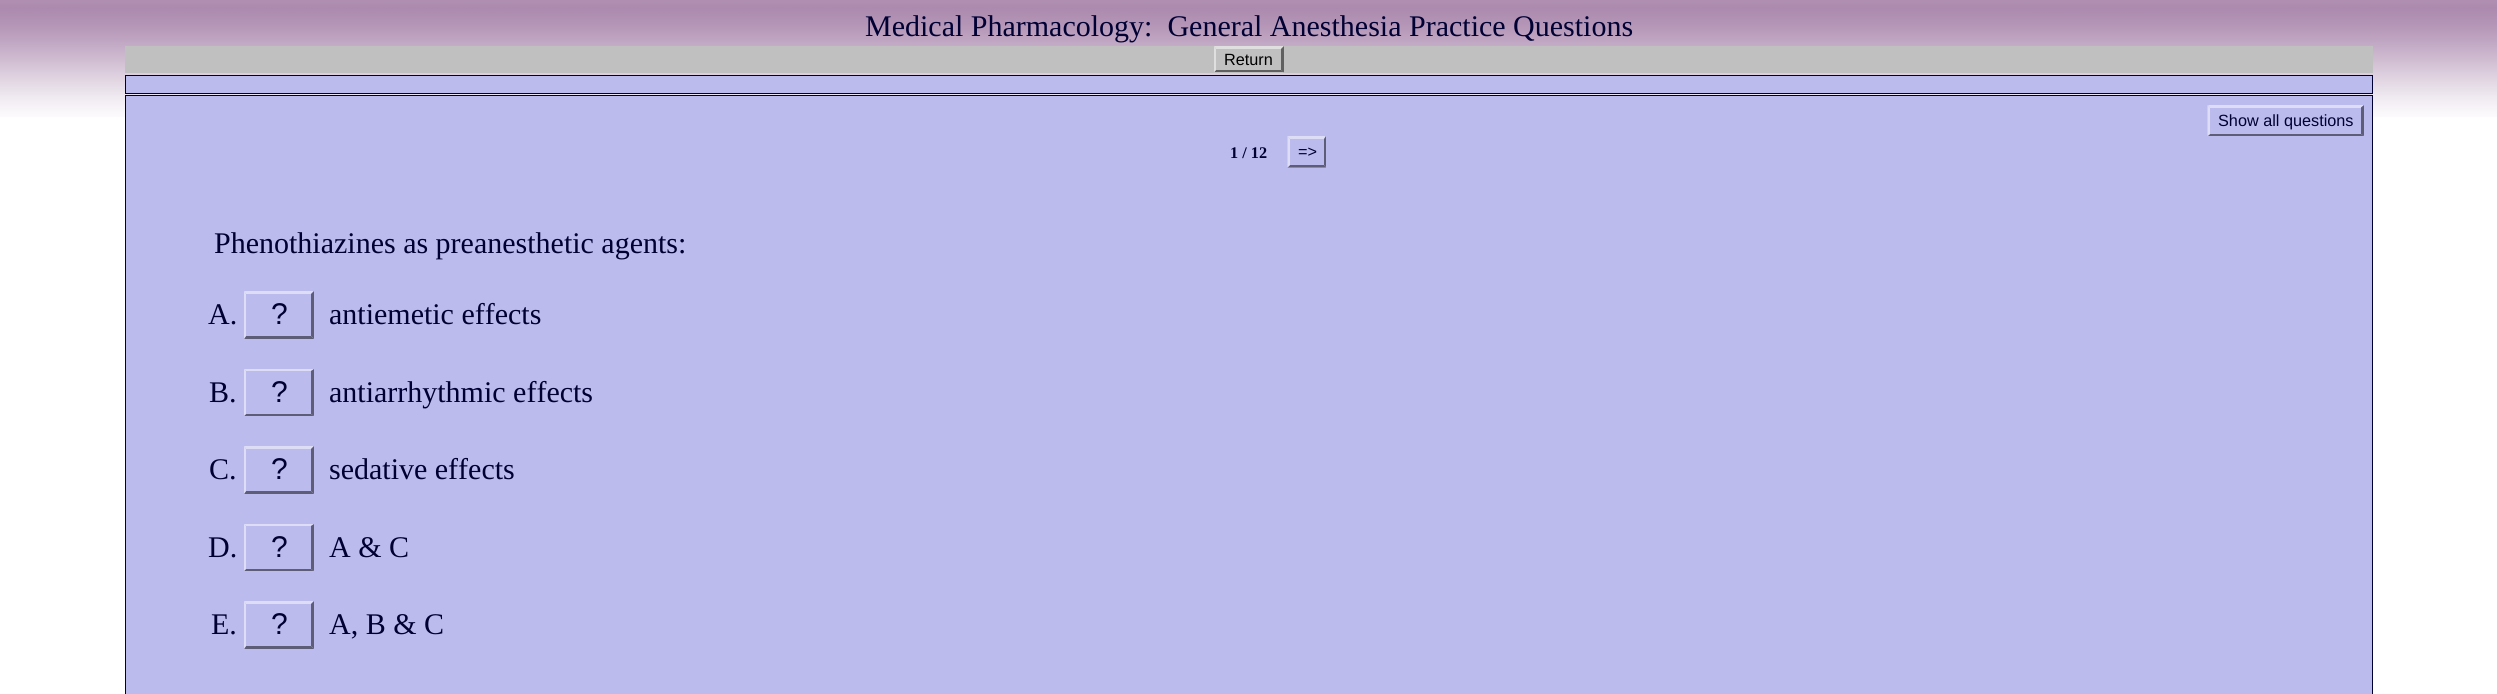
#include <cairo.h>
#include <math.h>
#include <stddef.h>


static void set_color(cairo_t *cr, unsigned color) {
    cairo_set_source_rgb(cr, (color >> 16) / 255.0, (color >> 8 & 255) / 255.0, (color & 255) / 255.0);
}

static void draw_text(cairo_t *cr, double x, double y, const char *s, const char *family, double size, int italic, int bold, unsigned color) {
    cairo_select_font_face(cr, family, italic ? CAIRO_FONT_SLANT_ITALIC : CAIRO_FONT_SLANT_NORMAL,
        bold ? CAIRO_FONT_WEIGHT_BOLD : CAIRO_FONT_WEIGHT_NORMAL);
    cairo_set_font_size(cr, size);
    set_color(cr, color);
    cairo_move_to(cr, x, y);
    cairo_show_text(cr, s);
}

static void fill_rect(cairo_t *cr, double x, double y, double w, double h, unsigned color) {
    set_color(cr, color);
    cairo_rectangle(cr, x, y, w, h);
    cairo_fill(cr);
}

static void draw_image(cairo_t *cr, const char *path, double x, double y, double w, double h) {
    cairo_surface_t *image = cairo_image_surface_create_from_png(path);
    cairo_save(cr);
    cairo_set_source_surface(cr, image, x, y);
    cairo_rectangle(cr, x, y, w, h);
    cairo_fill(cr);
    cairo_restore(cr);
    cairo_surface_destroy(image);
}

int main(void) {
    cairo_surface_t *surface = cairo_image_surface_create(CAIRO_FORMAT_RGB24, 2497, 694);
    cairo_t *cr = cairo_create(surface);
    cairo_font_options_t *options = cairo_font_options_create();
    cairo_font_options_set_hint_metrics(options, CAIRO_HINT_METRICS_OFF);
    cairo_font_options_set_hint_style(options, CAIRO_HINT_STYLE_NONE);
    cairo_set_font_options(cr, options);
    cairo_set_miter_limit(cr, 4);
    set_color(cr, 0xFFFFFF);
    cairo_paint(cr);
    draw_image(cr, "assets/img1.png", 0, 0, 2497, 117);
    draw_text(cr, 865, 36, "Medical Pharmacology:  General Anesthesia Practice Questions", "Liberation Serif", 30, 0, 0, 0x000033);
    fill_rect(cr, 125, 46, 2248, 27, 0xC0C0C0);
    set_color(cr, 0xDFDFDF);
    cairo_new_path(cr);
    cairo_move_to(cr, 1214, 46);
    cairo_line_to(cr, 1284, 46);
    cairo_line_to(cr, 1281, 49);
    cairo_line_to(cr, 1216, 49);
    cairo_close_path(cr);
    cairo_fill(cr);
    set_color(cr, 0x606060);
    cairo_new_path(cr);
    cairo_move_to(cr, 1284, 46);
    cairo_line_to(cr, 1284, 72.5);
    cairo_line_to(cr, 1281, 70);
    cairo_line_to(cr, 1281, 49);
    cairo_close_path(cr);
    cairo_fill(cr);
    cairo_new_path(cr);
    cairo_move_to(cr, 1284, 72);
    cairo_line_to(cr, 1214, 72);
    cairo_line_to(cr, 1216, 70);
    cairo_line_to(cr, 1281, 70);
    cairo_close_path(cr);
    cairo_fill(cr);
    set_color(cr, 0xDFDFDF);
    cairo_new_path(cr);
    cairo_move_to(cr, 1214, 72.5);
    cairo_line_to(cr, 1214, 46);
    cairo_line_to(cr, 1216, 49);
    cairo_line_to(cr, 1216, 70);
    cairo_close_path(cr);
    cairo_fill(cr);
    draw_text(cr, 1224, 65, "Return", "Liberation Sans", 16.25, 0, 0, 0x000000);
    set_color(cr, 0xBBBBEE);
    cairo_rectangle(cr, 125.5, 75.5, 2247, 18);
    cairo_fill_preserve(cr);
    set_color(cr, 0x000033);
    cairo_set_line_width(cr, 1);
    cairo_stroke(cr);
    set_color(cr, 0xBBBBEE);
    cairo_rectangle(cr, 125.5, 95.5, 2247, 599);
    cairo_fill_preserve(cr);
    set_color(cr, 0x000033);
    cairo_stroke(cr);
    set_color(cr, 0xDDDDF6);
    cairo_new_path(cr);
    cairo_move_to(cr, 2208, 105);
    cairo_line_to(cr, 2364, 105);
    cairo_line_to(cr, 2361, 108);
    cairo_line_to(cr, 2210, 108);
    cairo_close_path(cr);
    cairo_fill(cr);
    set_color(cr, 0x5D5D77);
    cairo_new_path(cr);
    cairo_move_to(cr, 2364, 105);
    cairo_line_to(cr, 2364, 136);
    cairo_line_to(cr, 2361, 134);
    cairo_line_to(cr, 2361, 107.5);
    cairo_close_path(cr);
    cairo_fill(cr);
    cairo_new_path(cr);
    cairo_move_to(cr, 2364, 136);
    cairo_line_to(cr, 2208, 136);
    cairo_line_to(cr, 2210, 134);
    cairo_line_to(cr, 2361, 134);
    cairo_close_path(cr);
    cairo_fill(cr);
    set_color(cr, 0xDDDDF6);
    cairo_new_path(cr);
    cairo_move_to(cr, 2207.5, 136);
    cairo_line_to(cr, 2207.5, 105);
    cairo_line_to(cr, 2210, 107.5);
    cairo_line_to(cr, 2210, 134);
    cairo_close_path(cr);
    cairo_fill(cr);
    draw_text(cr, 2218, 126, "Show all questions", "Liberation Sans", 16.25, 0, 0, 0x000033);
    draw_text(cr, 1230, 158, "1 / 12", "Liberation Serif", 16.25, 0, 1, 0x000033);
    set_color(cr, 0xDDDDF6);
    cairo_new_path(cr);
    cairo_move_to(cr, 1287.5, 136);
    cairo_line_to(cr, 1326, 136);
    cairo_line_to(cr, 1324, 139);
    cairo_line_to(cr, 1290, 139);
    cairo_close_path(cr);
    cairo_fill(cr);
    set_color(cr, 0x5D5D77);
    cairo_new_path(cr);
    cairo_move_to(cr, 1326, 136);
    cairo_line_to(cr, 1326, 167.5);
    cairo_line_to(cr, 1324, 165);
    cairo_line_to(cr, 1324, 139);
    cairo_close_path(cr);
    cairo_fill(cr);
    cairo_new_path(cr);
    cairo_move_to(cr, 1326, 167.5);
    cairo_line_to(cr, 1287.5, 167.5);
    cairo_line_to(cr, 1290, 165);
    cairo_line_to(cr, 1324, 165);
    cairo_close_path(cr);
    cairo_fill(cr);
    set_color(cr, 0xDDDDF6);
    cairo_new_path(cr);
    cairo_move_to(cr, 1287.5, 167.5);
    cairo_line_to(cr, 1287.5, 136);
    cairo_line_to(cr, 1290, 139);
    cairo_line_to(cr, 1290, 165);
    cairo_close_path(cr);
    cairo_fill(cr);
    draw_text(cr, 1298, 157, "=>", "Liberation Sans", 16.25, 0, 0, 0x000033);
    draw_text(cr, 214, 253, "Phenothiazines as preanesthetic agents:", "Liberation Serif", 30, 0, 0, 0x000033);
    draw_text(cr, 208, 324, "A.", "Liberation Serif", 30, 0, 0, 0x000033);
    set_color(cr, 0xDDDDF6);
    cairo_new_path(cr);
    cairo_move_to(cr, 244, 291);
    cairo_line_to(cr, 314, 291);
    cairo_line_to(cr, 311, 294);
    cairo_line_to(cr, 246, 294);
    cairo_close_path(cr);
    cairo_fill(cr);
    set_color(cr, 0x5D5D77);
    cairo_new_path(cr);
    cairo_move_to(cr, 314, 291);
    cairo_line_to(cr, 314, 339);
    cairo_line_to(cr, 311, 336);
    cairo_line_to(cr, 311, 294);
    cairo_close_path(cr);
    cairo_fill(cr);
    cairo_new_path(cr);
    cairo_move_to(cr, 314, 339);
    cairo_line_to(cr, 244, 339);
    cairo_line_to(cr, 246, 336);
    cairo_line_to(cr, 311, 336);
    cairo_close_path(cr);
    cairo_fill(cr);
    set_color(cr, 0xDDDDF6);
    cairo_new_path(cr);
    cairo_move_to(cr, 244, 339);
    cairo_line_to(cr, 244, 291);
    cairo_line_to(cr, 246, 294);
    cairo_line_to(cr, 246, 336);
    cairo_close_path(cr);
    cairo_fill(cr);
    draw_text(cr, 271, 324, "?", "Liberation Sans", 30, 0, 0, 0x000033);
    draw_text(cr, 329, 324, "antiemetic effects", "Liberation Serif", 30, 0, 0, 0x000033);
    draw_text(cr, 209, 402, "B.", "Liberation Serif", 30, 0, 0, 0x000033);
    set_color(cr, 0xDDDDF6);
    cairo_new_path(cr);
    cairo_move_to(cr, 244, 369);
    cairo_line_to(cr, 314, 369);
    cairo_line_to(cr, 311, 371);
    cairo_line_to(cr, 246, 371);
    cairo_close_path(cr);
    cairo_fill(cr);
    set_color(cr, 0x5D5D77);
    cairo_new_path(cr);
    cairo_move_to(cr, 314, 369);
    cairo_line_to(cr, 314, 416);
    cairo_line_to(cr, 311, 414);
    cairo_line_to(cr, 311, 371);
    cairo_close_path(cr);
    cairo_fill(cr);
    cairo_new_path(cr);
    cairo_move_to(cr, 314, 416);
    cairo_line_to(cr, 244, 416);
    cairo_line_to(cr, 246, 414);
    cairo_line_to(cr, 311, 414);
    cairo_close_path(cr);
    cairo_fill(cr);
    set_color(cr, 0xDDDDF6);
    cairo_new_path(cr);
    cairo_move_to(cr, 244, 416);
    cairo_line_to(cr, 244, 369);
    cairo_line_to(cr, 246, 371);
    cairo_line_to(cr, 246, 414);
    cairo_close_path(cr);
    cairo_fill(cr);
    draw_text(cr, 271, 402, "?", "Liberation Sans", 30, 0, 0, 0x000033);
    draw_text(cr, 329, 402, "antiarrhythmic effects", "Liberation Serif", 30, 0, 0, 0x000033);
    draw_text(cr, 209, 479, "C.", "Liberation Serif", 30, 0, 0, 0x000033);
    set_color(cr, 0xDDDDF6);
    cairo_new_path(cr);
    cairo_move_to(cr, 244, 446);
    cairo_line_to(cr, 314, 446);
    cairo_line_to(cr, 311, 449);
    cairo_line_to(cr, 246, 449);
    cairo_close_path(cr);
    cairo_fill(cr);
    set_color(cr, 0x5D5D77);
    cairo_new_path(cr);
    cairo_move_to(cr, 314, 446);
    cairo_line_to(cr, 314, 494);
    cairo_line_to(cr, 311, 491);
    cairo_line_to(cr, 311, 449);
    cairo_close_path(cr);
    cairo_fill(cr);
    cairo_new_path(cr);
    cairo_move_to(cr, 314, 494);
    cairo_line_to(cr, 244, 494);
    cairo_line_to(cr, 246, 491);
    cairo_line_to(cr, 311, 491);
    cairo_close_path(cr);
    cairo_fill(cr);
    set_color(cr, 0xDDDDF6);
    cairo_new_path(cr);
    cairo_move_to(cr, 244, 494);
    cairo_line_to(cr, 244, 446);
    cairo_line_to(cr, 246, 449);
    cairo_line_to(cr, 246, 491);
    cairo_close_path(cr);
    cairo_fill(cr);
    draw_text(cr, 271, 479, "?", "Liberation Sans", 30, 0, 0, 0x000033);
    draw_text(cr, 329, 479, "sedative effects", "Liberation Serif", 30, 0, 0, 0x000033);
    draw_text(cr, 208, 557, "D.", "Liberation Serif", 30, 0, 0, 0x000033);
    set_color(cr, 0xDDDDF6);
    cairo_new_path(cr);
    cairo_move_to(cr, 244, 524);
    cairo_line_to(cr, 314, 524);
    cairo_line_to(cr, 311, 526);
    cairo_line_to(cr, 246, 526);
    cairo_close_path(cr);
    cairo_fill(cr);
    set_color(cr, 0x5D5D77);
    cairo_new_path(cr);
    cairo_move_to(cr, 314, 524);
    cairo_line_to(cr, 314, 571);
    cairo_line_to(cr, 311, 569);
    cairo_line_to(cr, 311, 526);
    cairo_close_path(cr);
    cairo_fill(cr);
    cairo_new_path(cr);
    cairo_move_to(cr, 314, 571);
    cairo_line_to(cr, 244, 571);
    cairo_line_to(cr, 246, 569);
    cairo_line_to(cr, 311, 569);
    cairo_close_path(cr);
    cairo_fill(cr);
    set_color(cr, 0xDDDDF6);
    cairo_new_path(cr);
    cairo_move_to(cr, 244, 571);
    cairo_line_to(cr, 244, 524);
    cairo_line_to(cr, 246, 526);
    cairo_line_to(cr, 246, 569);
    cairo_close_path(cr);
    cairo_fill(cr);
    draw_text(cr, 271, 557, "?", "Liberation Sans", 30, 0, 0, 0x000033);
    draw_text(cr, 329, 557, "A & C", "Liberation Serif", 30, 0, 0, 0x000033);
    draw_text(cr, 211, 634, "E.", "Liberation Serif", 30, 0, 0, 0x000033);
    set_color(cr, 0xDDDDF6);
    cairo_new_path(cr);
    cairo_move_to(cr, 244, 601);
    cairo_line_to(cr, 314, 601);
    cairo_line_to(cr, 311, 604);
    cairo_line_to(cr, 246, 604);
    cairo_close_path(cr);
    cairo_fill(cr);
    set_color(cr, 0x5D5D77);
    cairo_new_path(cr);
    cairo_move_to(cr, 314, 601);
    cairo_line_to(cr, 314, 649);
    cairo_line_to(cr, 311, 646);
    cairo_line_to(cr, 311, 604);
    cairo_close_path(cr);
    cairo_fill(cr);
    cairo_new_path(cr);
    cairo_move_to(cr, 314, 649);
    cairo_line_to(cr, 244, 649);
    cairo_line_to(cr, 246, 646);
    cairo_line_to(cr, 311, 646);
    cairo_close_path(cr);
    cairo_fill(cr);
    set_color(cr, 0xDDDDF6);
    cairo_new_path(cr);
    cairo_move_to(cr, 244, 649);
    cairo_line_to(cr, 244, 601);
    cairo_line_to(cr, 246, 604);
    cairo_line_to(cr, 246, 646);
    cairo_close_path(cr);
    cairo_fill(cr);
    draw_text(cr, 271, 634, "?", "Liberation Sans", 30, 0, 0, 0x000033);
    draw_text(cr, 329, 634, "A, B & C", "Liberation Serif", 30, 0, 0, 0x000033);
    cairo_surface_write_to_png(surface, "output.png");
    cairo_font_options_destroy(options);
    cairo_destroy(cr);
    cairo_surface_destroy(surface);
    return 0;
}
